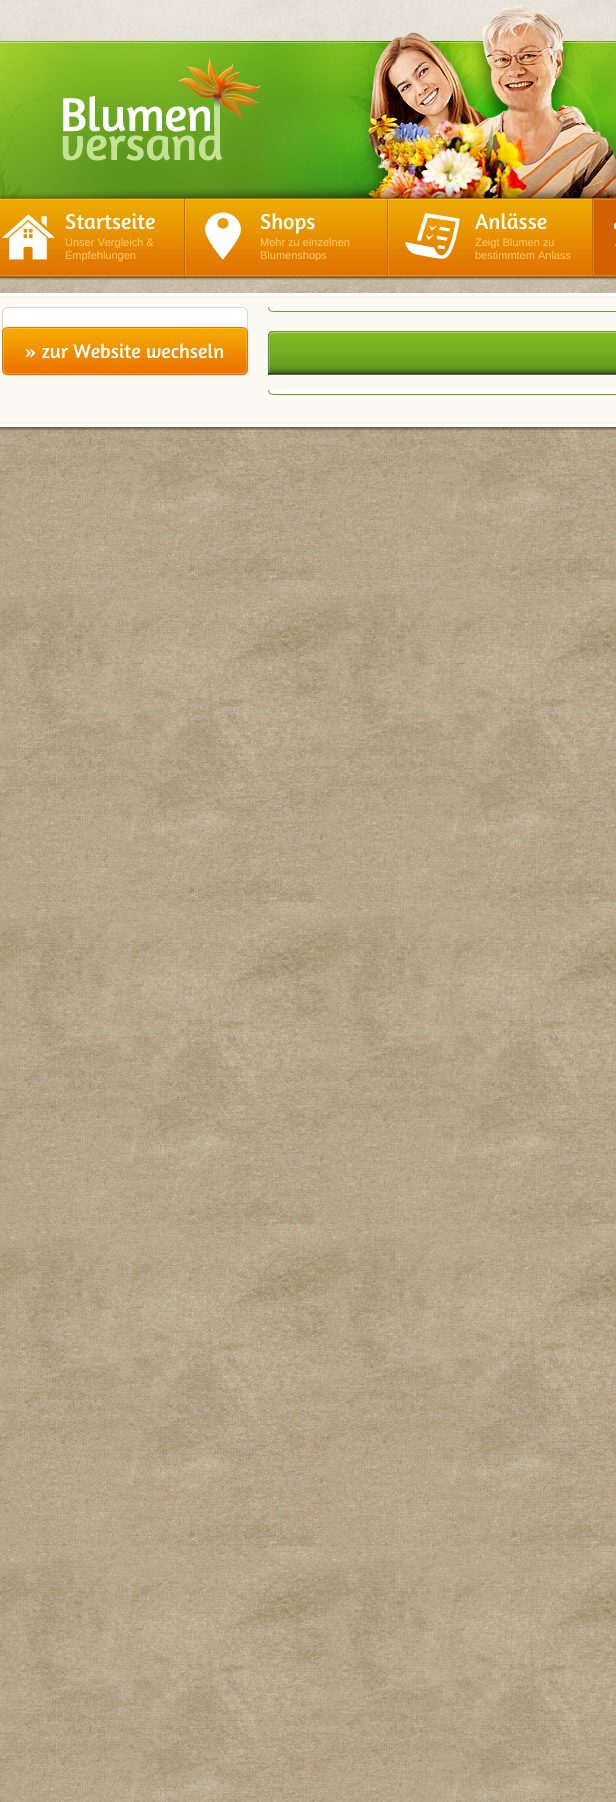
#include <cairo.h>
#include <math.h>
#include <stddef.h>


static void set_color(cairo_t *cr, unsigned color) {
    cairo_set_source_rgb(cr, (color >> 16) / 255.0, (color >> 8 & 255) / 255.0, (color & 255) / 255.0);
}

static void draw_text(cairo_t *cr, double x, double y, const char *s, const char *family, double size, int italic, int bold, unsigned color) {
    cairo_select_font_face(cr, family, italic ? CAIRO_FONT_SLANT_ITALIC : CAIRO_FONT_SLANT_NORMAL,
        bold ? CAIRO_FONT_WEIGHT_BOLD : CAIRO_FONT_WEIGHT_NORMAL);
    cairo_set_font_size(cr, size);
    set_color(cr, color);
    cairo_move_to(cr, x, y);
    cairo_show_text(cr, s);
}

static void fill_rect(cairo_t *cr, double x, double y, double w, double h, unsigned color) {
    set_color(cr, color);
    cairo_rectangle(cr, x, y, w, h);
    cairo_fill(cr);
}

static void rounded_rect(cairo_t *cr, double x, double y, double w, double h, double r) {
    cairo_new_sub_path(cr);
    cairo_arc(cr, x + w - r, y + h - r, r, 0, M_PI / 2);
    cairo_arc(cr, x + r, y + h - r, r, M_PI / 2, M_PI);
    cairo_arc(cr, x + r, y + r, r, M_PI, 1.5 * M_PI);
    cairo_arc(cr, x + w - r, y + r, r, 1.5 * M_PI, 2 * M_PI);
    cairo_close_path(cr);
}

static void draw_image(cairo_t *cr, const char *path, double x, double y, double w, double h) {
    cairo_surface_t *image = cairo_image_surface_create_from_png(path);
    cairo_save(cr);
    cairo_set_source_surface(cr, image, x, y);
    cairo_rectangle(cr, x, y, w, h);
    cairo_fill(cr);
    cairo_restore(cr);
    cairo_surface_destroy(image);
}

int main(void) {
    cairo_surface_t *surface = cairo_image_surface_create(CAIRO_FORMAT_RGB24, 616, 1802);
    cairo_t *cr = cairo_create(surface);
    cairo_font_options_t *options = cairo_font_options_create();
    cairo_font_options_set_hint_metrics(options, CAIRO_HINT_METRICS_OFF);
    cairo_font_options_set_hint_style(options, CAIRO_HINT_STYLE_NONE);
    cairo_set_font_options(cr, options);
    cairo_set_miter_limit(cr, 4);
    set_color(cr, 0xFFFFFF);
    cairo_paint(cr);
    draw_image(cr, "assets/img1.png", 0, 0, 616, 1802);
    draw_image(cr, "assets/img2.png", 0, 0, 616, 293);
    draw_image(cr, "assets/img3.png", 0, 6, 616, 192);
    draw_image(cr, "assets/img4.png", 62, 58, 199, 103);
    draw_image(cr, "assets/img5.png", 0, 184, 616, 96);
    draw_image(cr, "assets/img6.png", 2, 214, 53, 46);
    draw_text(cr, 65, 229, "Startseite", "Amaranth", 22, 0, 0, 0xFFFFFF);
    draw_text(cr, 65, 246, "Unser Vergleich &", "Liberation Sans", 11, 0, 0, 0xFFC96E);
    draw_text(cr, 65, 259, "Empfehlungen", "Liberation Sans", 11, 0, 0, 0xFFC96E);
    fill_rect(cr, 184, 199, 1, 77, 0xC46B0F);
    draw_image(cr, "assets/img7.png", 185, 199, 1, 77);
    draw_image(cr, "assets/img8.png", 205, 212, 36, 48);
    draw_text(cr, 260, 229, "Shops", "Amaranth", 22, 0, 0, 0xFFFFFF);
    draw_text(cr, 260, 246, "Mehr zu einzelnen", "Liberation Sans", 11, 0, 0, 0xFFC96E);
    draw_text(cr, 260, 259, "Blumenshops", "Liberation Sans", 11, 0, 0, 0xFFC96E);
    fill_rect(cr, 387, 199, 1, 77, 0xC46B0F);
    draw_image(cr, "assets/img7.png", 388, 199, 1, 77);
    draw_image(cr, "assets/img9.png", 405, 213, 55, 46);
    draw_text(cr, 475, 229, "Anlässe", "Amaranth", 22, 0, 0, 0xFFFFFF);
    draw_text(cr, 475, 246, "Zeigt Blumen zu", "Liberation Sans", 11, 0, 0, 0xFFC96E);
    draw_text(cr, 475, 259, "bestimmtem Anlass", "Liberation Sans", 11, 0, 0, 0xFFC96E);
    fill_rect(cr, 592, 199, 1, 77, 0xC46B0F);
    set_color(cr, 0xD26101);
    cairo_rectangle(cr, 593.5, 199.5, 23, 76);
    cairo_fill_preserve(cr);
    set_color(cr, 0xDB8134);
    cairo_set_line_width(cr, 1);
    cairo_stroke(cr);
    draw_image(cr, "assets/img10.png", 614, 222, 2, 24);
    draw_image(cr, "assets/img11.png", 0, 293, 616, 10);
    fill_rect(cr, 0, 303, 616, 115, 0xFBF9F2);
    set_color(cr, 0xFFFFFF);
    rounded_rect(cr, 2.5, 307.5, 245, 68, 5.5);
    cairo_fill_preserve(cr);
    set_color(cr, 0xE0D6CA);
    cairo_stroke(cr);
    draw_image(cr, "assets/img12.png", 2, 327, 246, 48);
    draw_text(cr, 25, 358, "» zur Website wechseln", "Amaranth", 20, 0, 0, 0xFFFFFF);
    draw_image(cr, "assets/img13.png", 268, 307, 348, 5);
    draw_image(cr, "assets/img14.png", 268, 327, 348, 48);
    draw_image(cr, "assets/img13.png", 268, 390, 348, 5);
    draw_image(cr, "assets/img15.png", 0, 418, 616, 13);
    cairo_surface_write_to_png(surface, "output.png");
    cairo_font_options_destroy(options);
    cairo_destroy(cr);
    cairo_surface_destroy(surface);
    return 0;
}
